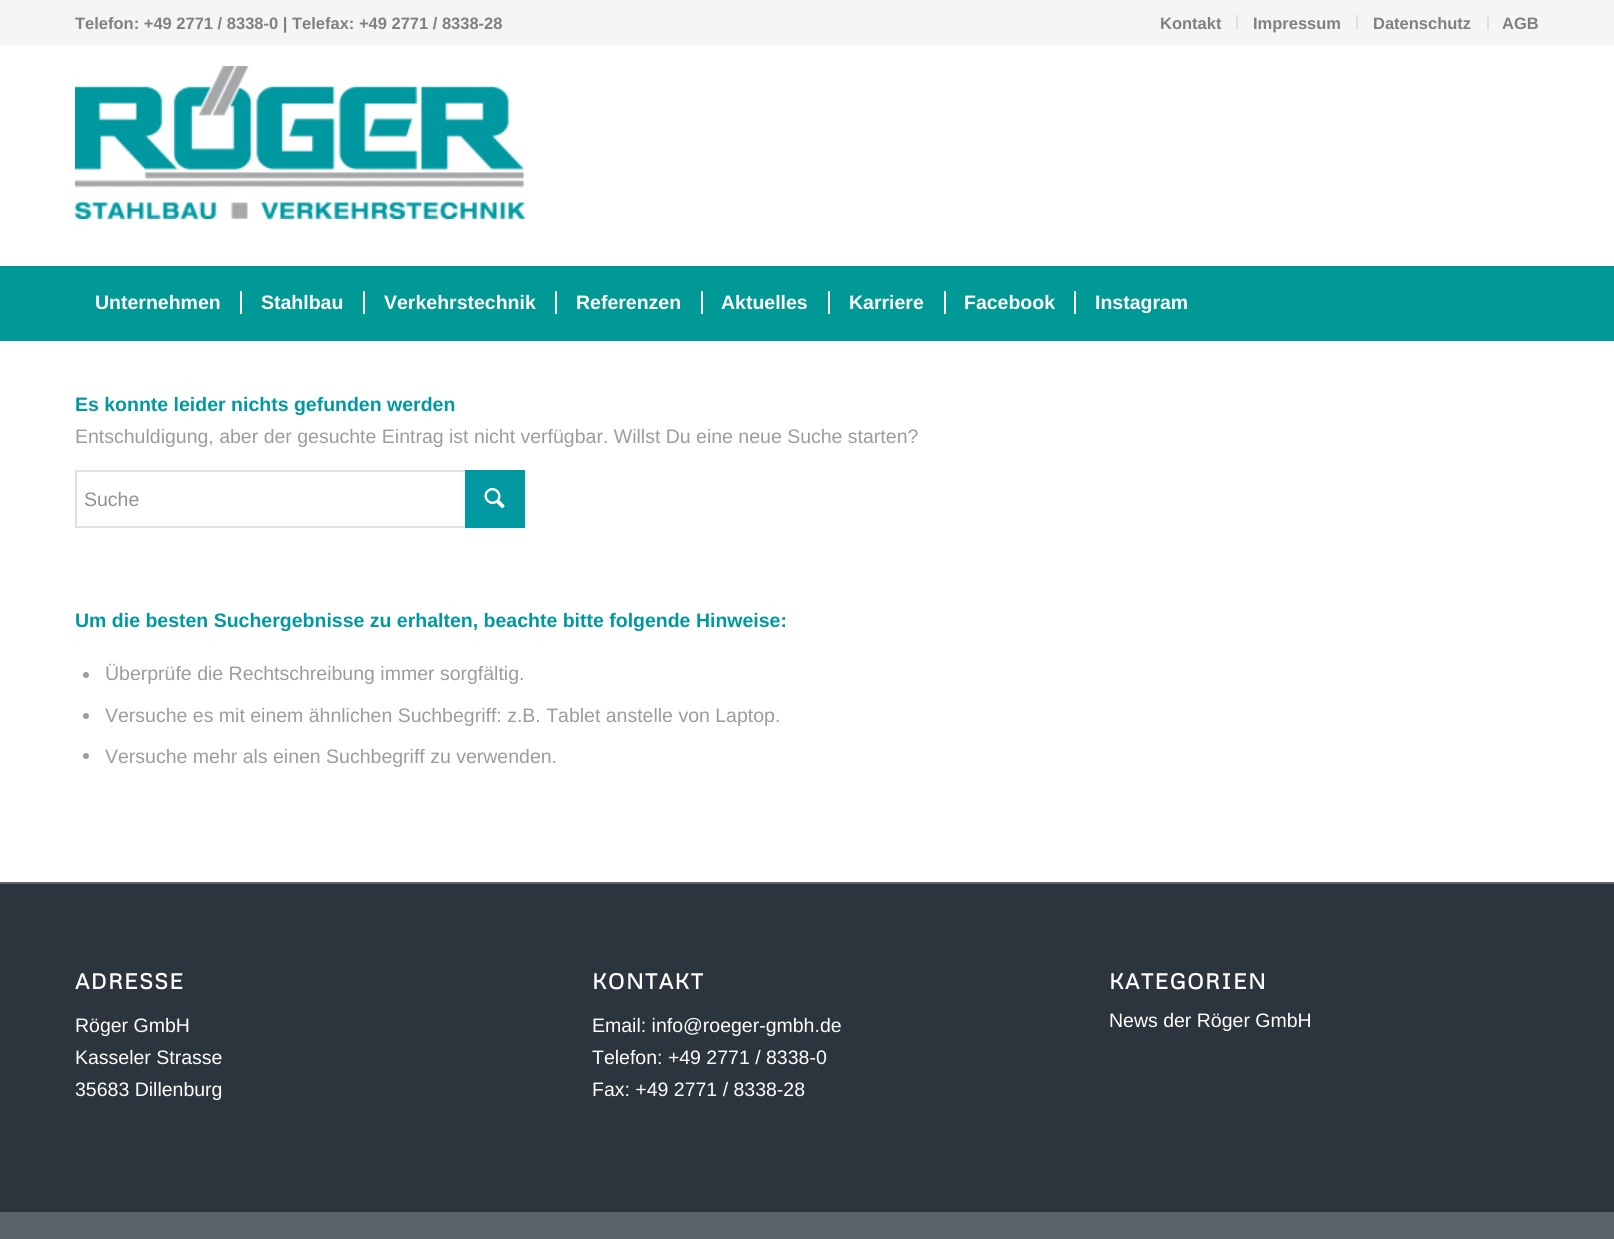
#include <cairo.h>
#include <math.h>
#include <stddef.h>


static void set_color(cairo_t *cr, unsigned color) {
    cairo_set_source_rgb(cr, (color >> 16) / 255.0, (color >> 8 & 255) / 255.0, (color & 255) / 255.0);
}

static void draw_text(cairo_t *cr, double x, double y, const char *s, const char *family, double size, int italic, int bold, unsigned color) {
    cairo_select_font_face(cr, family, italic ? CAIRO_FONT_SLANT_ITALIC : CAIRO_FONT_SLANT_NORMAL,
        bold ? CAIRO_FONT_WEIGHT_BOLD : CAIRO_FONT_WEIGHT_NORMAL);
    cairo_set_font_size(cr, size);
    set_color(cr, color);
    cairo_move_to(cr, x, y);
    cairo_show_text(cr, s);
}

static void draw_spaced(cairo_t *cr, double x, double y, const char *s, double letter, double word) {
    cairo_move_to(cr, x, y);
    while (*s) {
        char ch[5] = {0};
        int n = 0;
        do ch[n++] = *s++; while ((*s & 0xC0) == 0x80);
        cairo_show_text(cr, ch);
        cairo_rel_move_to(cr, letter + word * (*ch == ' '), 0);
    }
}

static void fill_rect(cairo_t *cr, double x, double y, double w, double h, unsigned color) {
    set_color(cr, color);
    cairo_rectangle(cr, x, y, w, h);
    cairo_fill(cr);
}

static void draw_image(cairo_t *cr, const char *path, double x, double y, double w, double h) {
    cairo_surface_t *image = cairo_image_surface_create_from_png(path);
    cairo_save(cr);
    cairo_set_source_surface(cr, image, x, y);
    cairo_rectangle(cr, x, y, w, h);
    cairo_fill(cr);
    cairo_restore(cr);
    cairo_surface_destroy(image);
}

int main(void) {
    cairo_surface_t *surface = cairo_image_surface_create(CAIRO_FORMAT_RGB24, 1614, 1239);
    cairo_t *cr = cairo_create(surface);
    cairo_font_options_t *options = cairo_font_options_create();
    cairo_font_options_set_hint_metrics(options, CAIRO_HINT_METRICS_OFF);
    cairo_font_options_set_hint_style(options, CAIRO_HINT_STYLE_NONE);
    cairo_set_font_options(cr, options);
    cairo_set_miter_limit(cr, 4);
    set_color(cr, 0x5B646B);
    cairo_paint(cr);
    fill_rect(cr, 0, 45, 1614, 837, 0xFFFFFF);
    fill_rect(cr, 0, 0, 1614, 45, 0xF5F5F5);
    draw_text(cr, 75, 29, "Telefon: +49 2771 / 8338-0 | Telefax: +49 2771 / 8338-28", "Liberation Sans", 16.5, 0, 1, 0x808080);
    fill_rect(cr, 1236, 15, 2, 15, 0xE1E1E1);
    draw_text(cr, 1160, 29, "Kontakt", "Liberation Sans", 16.5, 0, 1, 0x808080);
    fill_rect(cr, 1356, 15, 2, 15, 0xE1E1E1);
    draw_text(cr, 1253, 29, "Impressum", "Liberation Sans", 16.5, 0, 1, 0x808080);
    fill_rect(cr, 1487, 15, 2, 15, 0xE1E1E1);
    draw_text(cr, 1373, 29, "Datenschutz", "Liberation Sans", 16.5, 0, 1, 0x808080);
    draw_text(cr, 1502, 29, "AGB", "Liberation Sans", 16.5, 0, 1, 0x808080);
    draw_image(cr, "assets/img1.png", 75, 66, 450, 153);
    fill_rect(cr, 0, 266, 1614, 75, 0x009996);
    draw_text(cr, 95, 309, "Unternehmen", "Liberation Sans", 19.5, 0, 1, 0xFFFFFF);
    draw_text(cr, 261, 309, "Stahlbau", "Liberation Sans", 19.5, 0, 1, 0xFFFFFF);
    fill_rect(cr, 240, 291, 2, 23, 0xFFFFFF);
    draw_text(cr, 384, 309, "Verkehrstechnik", "Liberation Sans", 19.5, 0, 1, 0xFFFFFF);
    fill_rect(cr, 363, 291, 2, 23, 0xFFFFFF);
    draw_text(cr, 576, 309, "Referenzen", "Liberation Sans", 19.5, 0, 1, 0xFFFFFF);
    fill_rect(cr, 555, 291, 2, 23, 0xFFFFFF);
    draw_text(cr, 721, 309, "Aktuelles", "Liberation Sans", 19.5, 0, 1, 0xFFFFFF);
    fill_rect(cr, 701, 291, 2, 23, 0xFFFFFF);
    draw_text(cr, 849, 309, "Karriere", "Liberation Sans", 19.5, 0, 1, 0xFFFFFF);
    fill_rect(cr, 828, 291, 2, 23, 0xFFFFFF);
    draw_text(cr, 964, 309, "Facebook", "Liberation Sans", 19.5, 0, 1, 0xFFFFFF);
    fill_rect(cr, 944, 291, 2, 23, 0xFFFFFF);
    draw_text(cr, 1095, 309, "Instagram", "Liberation Sans", 19.5, 0, 1, 0xFFFFFF);
    fill_rect(cr, 1074, 291, 2, 23, 0xFFFFFF);
    draw_text(cr, 75, 411, "Es konnte leider nichts gefunden werden", "Liberation Sans", 19.5, 0, 1, 0x0099A1);
    draw_text(cr, 75, 443, "Entschuldigung, aber der gesuchte Eintrag ist nicht verfügbar. Willst Du eine neue Suche starten?", "Liberation Sans", 19.5, 0, 0, 0x9C9C9C);
    cairo_rectangle(cr, 76, 471, 448, 56);
    set_color(cr, 0xE1E1E1);
    cairo_stroke(cr);
    draw_text(cr, 84, 506, "Suche", "Liberation Sans", 19.5, 0, 0, 0x919191);
    fill_rect(cr, 465, 470, 60, 58, 0x0099A1);
    draw_image(cr, "assets/img2.png", 484, 488, 21, 21);
    draw_text(cr, 75, 627, "Um die besten Suchergebnisse zu erhalten, beachte bitte folgende Hinweise:", "Liberation Sans", 19.5, 0, 1, 0x0099A1);
    set_color(cr, 0x9C9C9C);
    cairo_new_path(cr);
    cairo_arc(cr, 86, 675, 3, 0, 2 * M_PI);
    cairo_fill(cr);
    draw_text(cr, 105, 680, "Überprüfe die Rechtschreibung immer sorgfältig.", "Liberation Sans", 19.5, 0, 0, 0x9C9C9C);
    cairo_new_path(cr);
    cairo_arc(cr, 86, 716, 3, 0, 2 * M_PI);
    cairo_fill(cr);
    draw_text(cr, 105, 722, "Versuche es mit einem ähnlichen Suchbegriff: z.B. Tablet anstelle von Laptop.", "Liberation Sans", 19.5, 0, 0, 0x9C9C9C);
    cairo_new_path(cr);
    cairo_arc(cr, 86, 756, 3, 0, 2 * M_PI);
    cairo_fill(cr);
    draw_text(cr, 105, 763, "Versuche mehr als einen Suchbegriff zu verwenden.", "Liberation Sans", 19.5, 0, 0, 0x9C9C9C);
    fill_rect(cr, 0, 884, 1614, 328, 0x2C353D);
    cairo_select_font_face(cr, "Metrophobic", CAIRO_FONT_SLANT_NORMAL, CAIRO_FONT_WEIGHT_BOLD);
    cairo_set_font_size(cr, 21.5);
    set_color(cr, 0xFFFFFF);
    draw_spaced(cr, 75, 989, "ADRESSE", 1.5, 0);
    draw_text(cr, 75, 1032, "Röger GmbH", "Liberation Sans", 19.5, 0, 0, 0xFFFFFF);
    draw_text(cr, 75, 1064, "Kasseler Strasse", "Liberation Sans", 19.5, 0, 0, 0xFFFFFF);
    draw_text(cr, 75, 1096, "35683 Dillenburg", "Liberation Sans", 19.5, 0, 0, 0xFFFFFF);
    cairo_select_font_face(cr, "Metrophobic", CAIRO_FONT_SLANT_NORMAL, CAIRO_FONT_WEIGHT_BOLD);
    cairo_set_font_size(cr, 21.5);
    draw_spaced(cr, 592, 989, "KONTAKT", 1.5, 0);
    draw_text(cr, 592, 1032, "Email: info@roeger-gmbh.de", "Liberation Sans", 19.5, 0, 0, 0xFFFFFF);
    draw_text(cr, 592, 1064, "Telefon: +49 2771 / 8338-0", "Liberation Sans", 19.5, 0, 0, 0xFFFFFF);
    draw_text(cr, 592, 1096, "Fax: +49 2771 / 8338-28", "Liberation Sans", 19.5, 0, 0, 0xFFFFFF);
    cairo_select_font_face(cr, "Metrophobic", CAIRO_FONT_SLANT_NORMAL, CAIRO_FONT_WEIGHT_BOLD);
    cairo_set_font_size(cr, 21.5);
    draw_spaced(cr, 1109, 989, "KATEGORIEN", 1.5, 0);
    draw_text(cr, 1109, 1027, "News der Röger GmbH", "Liberation Sans", 19.5, 0, 0, 0xFFFFFF);
    cairo_surface_write_to_png(surface, "output.png");
    cairo_font_options_destroy(options);
    cairo_destroy(cr);
    cairo_surface_destroy(surface);
    return 0;
}
